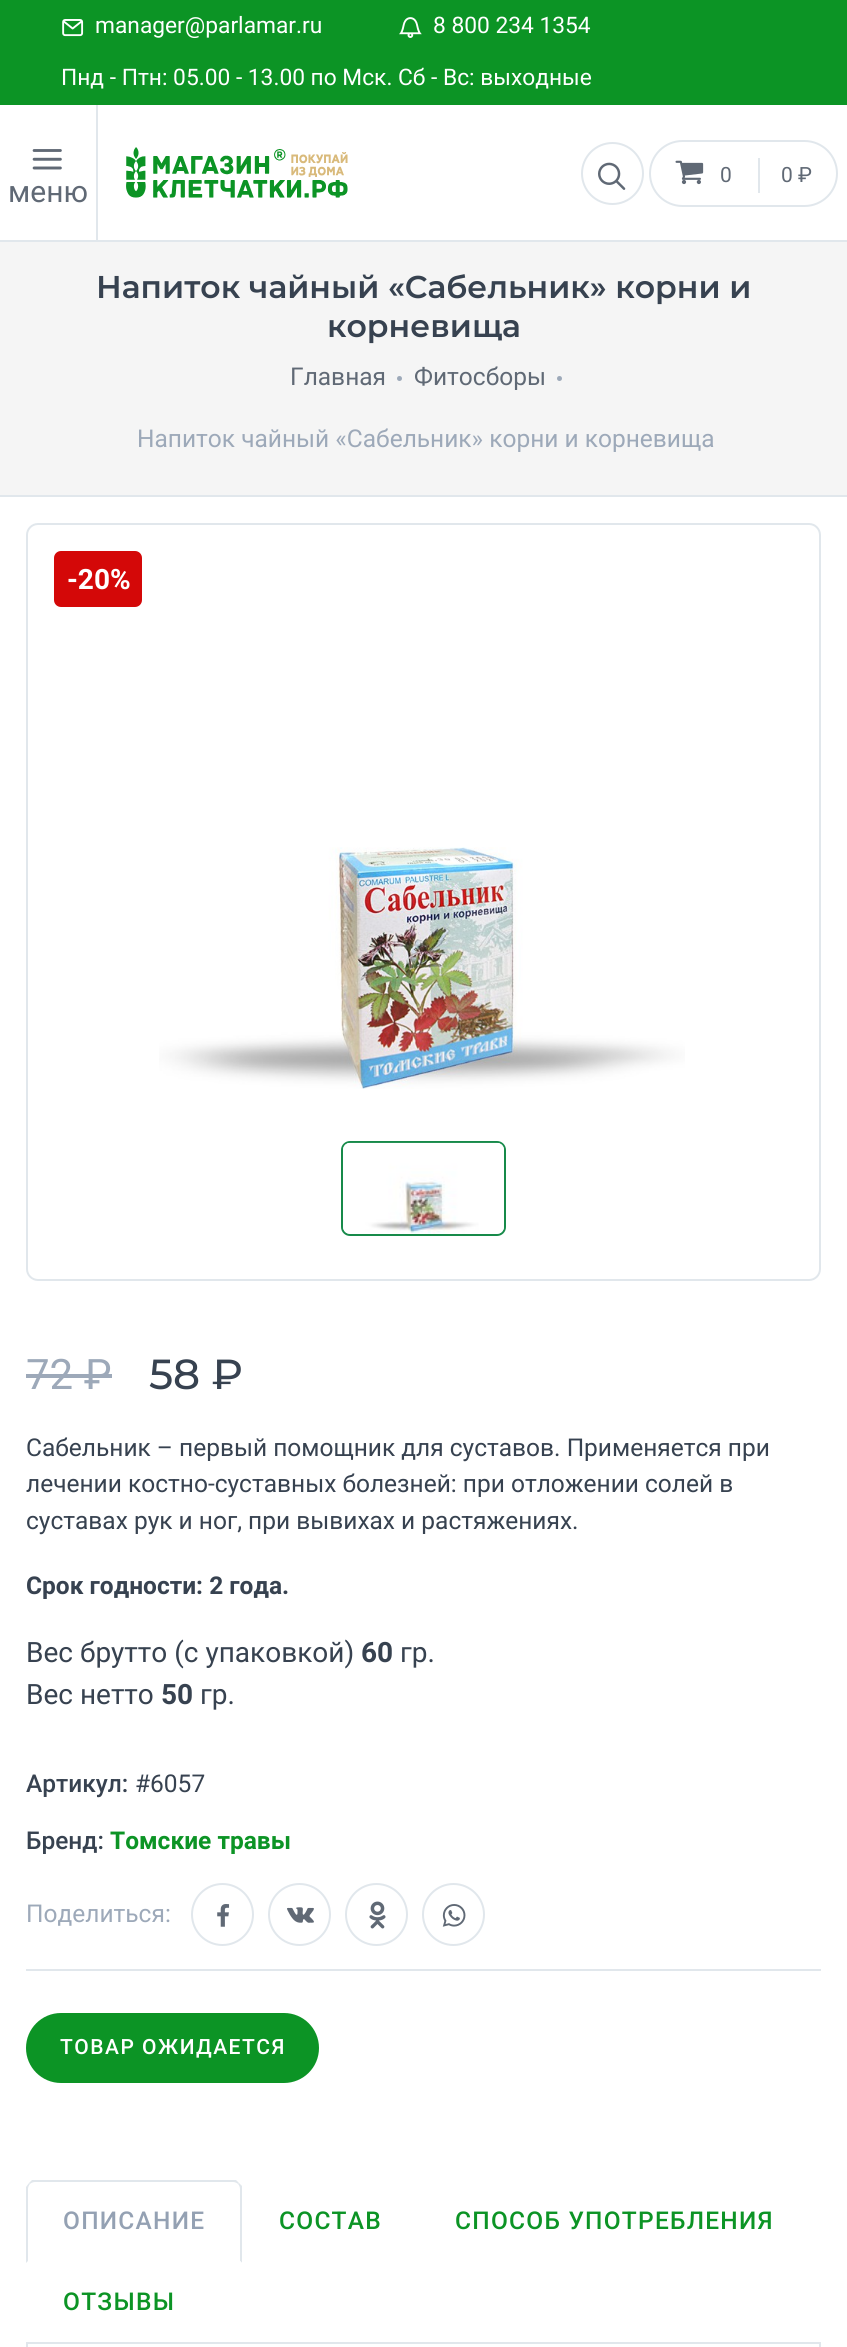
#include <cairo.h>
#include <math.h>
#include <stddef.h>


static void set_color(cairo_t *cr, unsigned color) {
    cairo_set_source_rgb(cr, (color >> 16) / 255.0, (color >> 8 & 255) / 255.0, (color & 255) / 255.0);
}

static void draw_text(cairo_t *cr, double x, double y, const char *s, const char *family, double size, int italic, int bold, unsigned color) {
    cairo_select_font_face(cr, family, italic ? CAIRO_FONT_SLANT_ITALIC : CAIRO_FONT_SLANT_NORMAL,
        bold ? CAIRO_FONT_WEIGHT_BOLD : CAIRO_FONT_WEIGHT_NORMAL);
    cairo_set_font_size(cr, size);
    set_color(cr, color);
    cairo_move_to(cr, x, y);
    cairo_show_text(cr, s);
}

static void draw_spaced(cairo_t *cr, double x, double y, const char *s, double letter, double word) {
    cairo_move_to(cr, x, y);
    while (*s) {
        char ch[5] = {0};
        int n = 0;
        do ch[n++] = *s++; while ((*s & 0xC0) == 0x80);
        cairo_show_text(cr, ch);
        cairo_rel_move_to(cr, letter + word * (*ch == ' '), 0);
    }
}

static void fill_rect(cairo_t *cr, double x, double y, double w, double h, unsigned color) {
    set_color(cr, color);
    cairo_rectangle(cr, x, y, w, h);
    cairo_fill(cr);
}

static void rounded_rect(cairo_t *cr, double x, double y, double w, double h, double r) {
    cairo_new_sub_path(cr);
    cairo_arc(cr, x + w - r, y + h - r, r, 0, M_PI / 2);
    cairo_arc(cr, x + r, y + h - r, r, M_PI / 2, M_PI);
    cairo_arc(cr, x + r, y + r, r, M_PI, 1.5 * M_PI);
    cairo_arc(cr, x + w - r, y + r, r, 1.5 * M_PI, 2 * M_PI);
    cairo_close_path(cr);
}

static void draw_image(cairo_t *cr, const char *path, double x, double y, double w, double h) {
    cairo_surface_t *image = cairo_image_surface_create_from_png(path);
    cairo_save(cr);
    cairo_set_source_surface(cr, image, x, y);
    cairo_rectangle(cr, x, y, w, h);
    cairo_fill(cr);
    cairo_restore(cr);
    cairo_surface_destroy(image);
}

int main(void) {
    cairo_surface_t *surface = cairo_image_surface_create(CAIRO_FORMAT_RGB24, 847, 2347);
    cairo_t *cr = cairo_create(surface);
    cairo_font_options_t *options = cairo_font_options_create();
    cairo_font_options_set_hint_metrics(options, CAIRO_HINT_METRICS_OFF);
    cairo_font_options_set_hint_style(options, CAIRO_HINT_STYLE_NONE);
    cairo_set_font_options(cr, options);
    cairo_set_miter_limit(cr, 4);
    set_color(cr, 0xFFFFFF);
    cairo_paint(cr);
    fill_rect(cr, 0, 0, 847, 105, 0x0C9425);
    draw_image(cr, "assets/img1.png", 62, 19, 22, 18);
    draw_text(cr, 95, 33, "manager@parlamar.ru", "Roboto", 22.75, 0, 0, 0xFFFFFF);
    draw_image(cr, "assets/img2.png", 399, 17, 23, 21);
    draw_text(cr, 433, 33, "8 800 234 1354", "Roboto", 22.75, 0, 0, 0xFFFFFF);
    draw_text(cr, 61, 85, "Пнд - Птн: 05.00 - 13.00 по Мск. Сб - Вс: выходные", "Roboto", 22.75, 0, 0, 0xFFFFFF);
    fill_rect(cr, 0, 240, 847, 2, 0xE1E7EC);
    cairo_new_path(cr);
    cairo_arc(cr, 612.5, 173.5, 30.5, 0, 2 * M_PI);
    cairo_stroke(cr);
    draw_image(cr, "assets/img3.png", 598, 162, 28, 28);
    rounded_rect(cr, 650, 141, 187, 65, 32.5);
    cairo_stroke(cr);
    draw_image(cr, "assets/img4.png", 675, 160, 29, 25);
    draw_text(cr, 720, 182, "0", "Roboto", 21, 0, 0, 0x606975);
    fill_rect(cr, 758, 158, 2, 35, 0xE1E7EC);
    draw_text(cr, 781, 182, "0 ₽", "Roboto", 21, 0, 0, 0x606975);
    fill_rect(cr, 96, 105, 2, 135, 0xE1E7EC);
    draw_image(cr, "assets/img5.png", 32, 149, 30, 21);
    draw_text(cr, 8, 202, "меню", "Roboto", 30, 0, 0, 0x606975);
    draw_image(cr, "assets/img6.png", 126, 147, 222, 51);
    fill_rect(cr, 0, 242, 847, 253, 0xF5F5F5);
    fill_rect(cr, 0, 495, 847, 2, 0xE1E7EC);
    draw_text(cr, 96, 298, "Напиток чайный «Сабельник» корни и", "Montserrat SemiBold", 31.5, 0, 0, 0x374250);
    draw_text(cr, 327, 337, "корневища", "Montserrat SemiBold", 31.5, 0, 0, 0x374250);
    draw_text(cr, 290, 385, "Главная", "Roboto", 24.5, 0, 0, 0x606975);
    set_color(cr, 0x9DA9B9);
    cairo_new_path(cr);
    cairo_arc(cr, 399.5, 378.5, 2.5, 0, 2 * M_PI);
    cairo_fill(cr);
    draw_text(cr, 414, 385, "Фитосборы", "Roboto", 24.5, 0, 0, 0x606975);
    set_color(cr, 0x9DA9B9);
    cairo_new_path(cr);
    cairo_arc(cr, 559.5, 378.5, 2.5, 0, 2 * M_PI);
    cairo_fill(cr);
    draw_text(cr, 137, 447, "Напиток чайный «Сабельник» корни и корневища", "Roboto", 24.5, 0, 0, 0x9DA9B9);
    rounded_rect(cr, 27, 524, 793, 756, 11);
    set_color(cr, 0xE1E7EC);
    cairo_stroke(cr);
    set_color(cr, 0xD40808);
    rounded_rect(cr, 54, 551, 88, 56, 7);
    cairo_fill(cr);
    draw_text(cr, 67, 589, "-20%", "Roboto", 28, 0, 1, 0xFFFFFF);
    draw_image(cr, "assets/img7.png", 159, 847, 526, 242);
    rounded_rect(cr, 342, 1142, 163, 93, 8);
    set_color(cr, 0x178A4A);
    cairo_stroke(cr);
    draw_image(cr, "assets/img8.png", 343, 1142, 161, 92);
    draw_text(cr, 26, 1389, "72 ₽", "Roboto", 42, 0, 0, 0x9DA9B9);
    fill_rect(cr, 26, 1374, 86, 4, 0x9DA9B9);
    draw_text(cr, 149, 1389, "58 ₽", "Montserrat Medium", 42, 0, 0, 0x374250);
    draw_text(cr, 26, 1456, "Сабельник – первый помощник для суставов. Применяется при", "Roboto", 24.5, 0, 0, 0x374250);
    draw_text(cr, 26, 1492, "лечении костно-суставных болезней: при отложении солей в", "Roboto", 24.5, 0, 0, 0x374250);
    draw_text(cr, 26, 1529, "суставах рук и ног, при вывихах и растяжениях.", "Roboto", 24.5, 0, 0, 0x374250);
    draw_text(cr, 26, 1594, "Срок годности: 2 года.", "Roboto", 24.5, 0, 1, 0x374250);
    draw_text(cr, 26, 1662, "Вес брутто (с упаковкой)", "Roboto", 28, 0, 0, 0x374250);
    draw_text(cr, 361, 1662, "60", "Roboto", 28, 0, 1, 0x374250);
    draw_text(cr, 400, 1662, "гр.", "Roboto", 28, 0, 0, 0x374250);
    draw_text(cr, 26, 1704, "Вес нетто", "Roboto", 28, 0, 0, 0x374250);
    draw_text(cr, 161, 1704, "50", "Roboto", 28, 0, 1, 0x374250);
    draw_text(cr, 200, 1704, "гр.", "Roboto", 28, 0, 0, 0x374250);
    draw_text(cr, 26, 1792, "Артикул:", "Roboto Medium", 24.5, 0, 0, 0x374250);
    draw_text(cr, 135, 1792, "#6057", "Roboto", 24.5, 0, 0, 0x374250);
    draw_text(cr, 26, 1849, "Бренд:", "Roboto Medium", 24.5, 0, 0, 0x374250);
    draw_text(cr, 110, 1849, "Томские травы", "Roboto", 24.5, 0, 1, 0x0C9425);
    draw_text(cr, 26, 1922, "Поделиться:", "Roboto", 24.5, 0, 0, 0x9DA9B9);
    cairo_new_path(cr);
    cairo_arc(cr, 222.5, 1914.5, 30.5, 0, 2 * M_PI);
    set_color(cr, 0xE1E7EC);
    cairo_stroke(cr);
    draw_image(cr, "assets/img9.png", 217, 1904, 13, 23);
    cairo_arc(cr, 299.5, 1914.5, 30.5, 0, 2 * M_PI);
    cairo_stroke(cr);
    draw_image(cr, "assets/img10.png", 287, 1907, 27, 16);
    cairo_arc(cr, 376.5, 1914.5, 30.5, 0, 2 * M_PI);
    cairo_stroke(cr);
    draw_image(cr, "assets/img11.png", 369, 1901, 17, 28);
    cairo_arc(cr, 453.5, 1914.5, 30.5, 0, 2 * M_PI);
    cairo_stroke(cr);
    draw_image(cr, "assets/img12.png", 442, 1904, 24, 23);
    fill_rect(cr, 26, 1969, 795, 2, 0xE1E7EC);
    set_color(cr, 0x0C9425);
    rounded_rect(cr, 26, 2013, 293, 70, 35);
    cairo_fill(cr);
    cairo_select_font_face(cr, "Roboto Medium", CAIRO_FONT_SLANT_NORMAL, CAIRO_FONT_WEIGHT_NORMAL);
    cairo_set_font_size(cr, 21);
    set_color(cr, 0xFFFFFF);
    draw_spaced(cr, 60, 2054, "ТОВАР ОЖИДАЕТСЯ", 1.5, 0);
    fill_rect(cr, 26, 2342, 795, 2, 0xE1E7EC);
    cairo_new_path(cr);
    cairo_move_to(cr, 35, 2182);
    cairo_curve_to(cr, 33, 2182, 31, 2183, 30, 2184);
    cairo_line_to(cr, 29, 2183);
    cairo_line_to(cr, 32, 2180);
    cairo_line_to(cr, 236, 2180);
    cairo_line_to(cr, 239, 2183);
    cairo_line_to(cr, 238, 2184);
    cairo_curve_to(cr, 237, 2183, 235, 2182, 233, 2182);
    cairo_close_path(cr);
    cairo_fill(cr);
    cairo_new_path(cr);
    cairo_move_to(cr, 239, 2183);
    cairo_line_to(cr, 242, 2186);
    cairo_line_to(cr, 242, 2263);
    cairo_line_to(cr, 240, 2261);
    cairo_line_to(cr, 240, 2189);
    cairo_curve_to(cr, 240, 2187, 239, 2185, 238, 2184);
    cairo_close_path(cr);
    cairo_fill(cr);
    set_color(cr, 0xFFFFFF);
    cairo_new_path(cr);
    cairo_move_to(cr, 242, 2263);
    cairo_line_to(cr, 240, 2261);
    cairo_line_to(cr, 28, 2261);
    cairo_line_to(cr, 26, 2263);
    cairo_close_path(cr);
    cairo_fill(cr);
    set_color(cr, 0xE1E7EC);
    cairo_new_path(cr);
    cairo_move_to(cr, 26, 2263);
    cairo_line_to(cr, 26, 2187);
    cairo_line_to(cr, 29, 2183);
    cairo_line_to(cr, 30, 2184);
    cairo_curve_to(cr, 29, 2185, 28, 2187, 28, 2189);
    cairo_line_to(cr, 28, 2261);
    cairo_close_path(cr);
    cairo_fill(cr);
    cairo_set_font_size(cr, 24.5);
    set_color(cr, 0x94A1B3);
    draw_spaced(cr, 63, 2229, "ОПИСАНИЕ", 1.25, 0);
    set_color(cr, 0x0C9425);
    draw_spaced(cr, 279, 2229, "СОСТАВ", 1.25, 0);
    draw_spaced(cr, 455, 2229, "СПОСОБ УПОТРЕБЛЕНИЯ", 1.25, 0);
    draw_spaced(cr, 63, 2310, "ОТЗЫВЫ", 1.25, 0);
    set_color(cr, 0xE1E7EC);
    cairo_set_fill_rule(cr, CAIRO_FILL_RULE_EVEN_ODD);
    cairo_new_path(cr);
    cairo_move_to(cr, 26, 2343);
    cairo_line_to(cr, 821, 2343);
    cairo_line_to(cr, 821, 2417);
    cairo_curve_to(cr, 821, 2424, 815, 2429, 808, 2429);
    cairo_line_to(cr, 38, 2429);
    cairo_curve_to(cr, 32, 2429, 26, 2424, 26, 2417);
    cairo_close_path(cr);
    cairo_move_to(cr, 28, 2343);
    cairo_line_to(cr, 819, 2343);
    cairo_line_to(cr, 819, 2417);
    cairo_curve_to(cr, 819, 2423, 814, 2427, 808, 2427);
    cairo_line_to(cr, 38, 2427);
    cairo_curve_to(cr, 33, 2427, 28, 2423, 28, 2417);
    cairo_close_path(cr);
    cairo_fill(cr);
    cairo_surface_write_to_png(surface, "output.png");
    cairo_font_options_destroy(options);
    cairo_destroy(cr);
    cairo_surface_destroy(surface);
    return 0;
}
